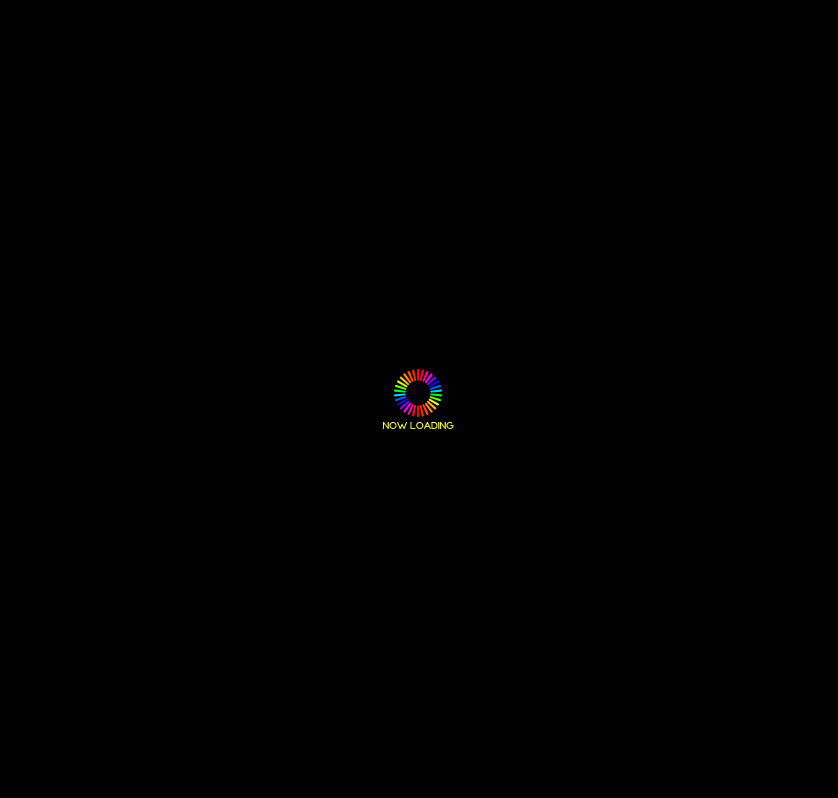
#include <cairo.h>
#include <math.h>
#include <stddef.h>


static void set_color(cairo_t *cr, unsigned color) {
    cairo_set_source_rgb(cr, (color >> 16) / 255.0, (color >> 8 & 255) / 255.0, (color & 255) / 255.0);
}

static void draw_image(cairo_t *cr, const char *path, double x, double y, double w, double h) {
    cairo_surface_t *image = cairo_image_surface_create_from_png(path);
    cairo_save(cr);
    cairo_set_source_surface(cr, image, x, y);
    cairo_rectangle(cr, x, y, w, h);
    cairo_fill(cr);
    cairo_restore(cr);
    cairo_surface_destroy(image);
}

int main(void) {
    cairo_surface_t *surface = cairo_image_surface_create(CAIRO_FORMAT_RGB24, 838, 798);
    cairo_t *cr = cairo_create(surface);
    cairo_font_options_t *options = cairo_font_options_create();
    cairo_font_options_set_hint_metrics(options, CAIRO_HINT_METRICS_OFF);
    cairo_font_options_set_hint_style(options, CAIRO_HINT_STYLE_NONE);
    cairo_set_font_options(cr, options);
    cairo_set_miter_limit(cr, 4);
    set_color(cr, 0x000000);
    cairo_paint(cr);
    draw_image(cr, "assets/img1.png", 383, 369, 71, 60);
    cairo_surface_write_to_png(surface, "output.png");
    cairo_font_options_destroy(options);
    cairo_destroy(cr);
    cairo_surface_destroy(surface);
    return 0;
}
